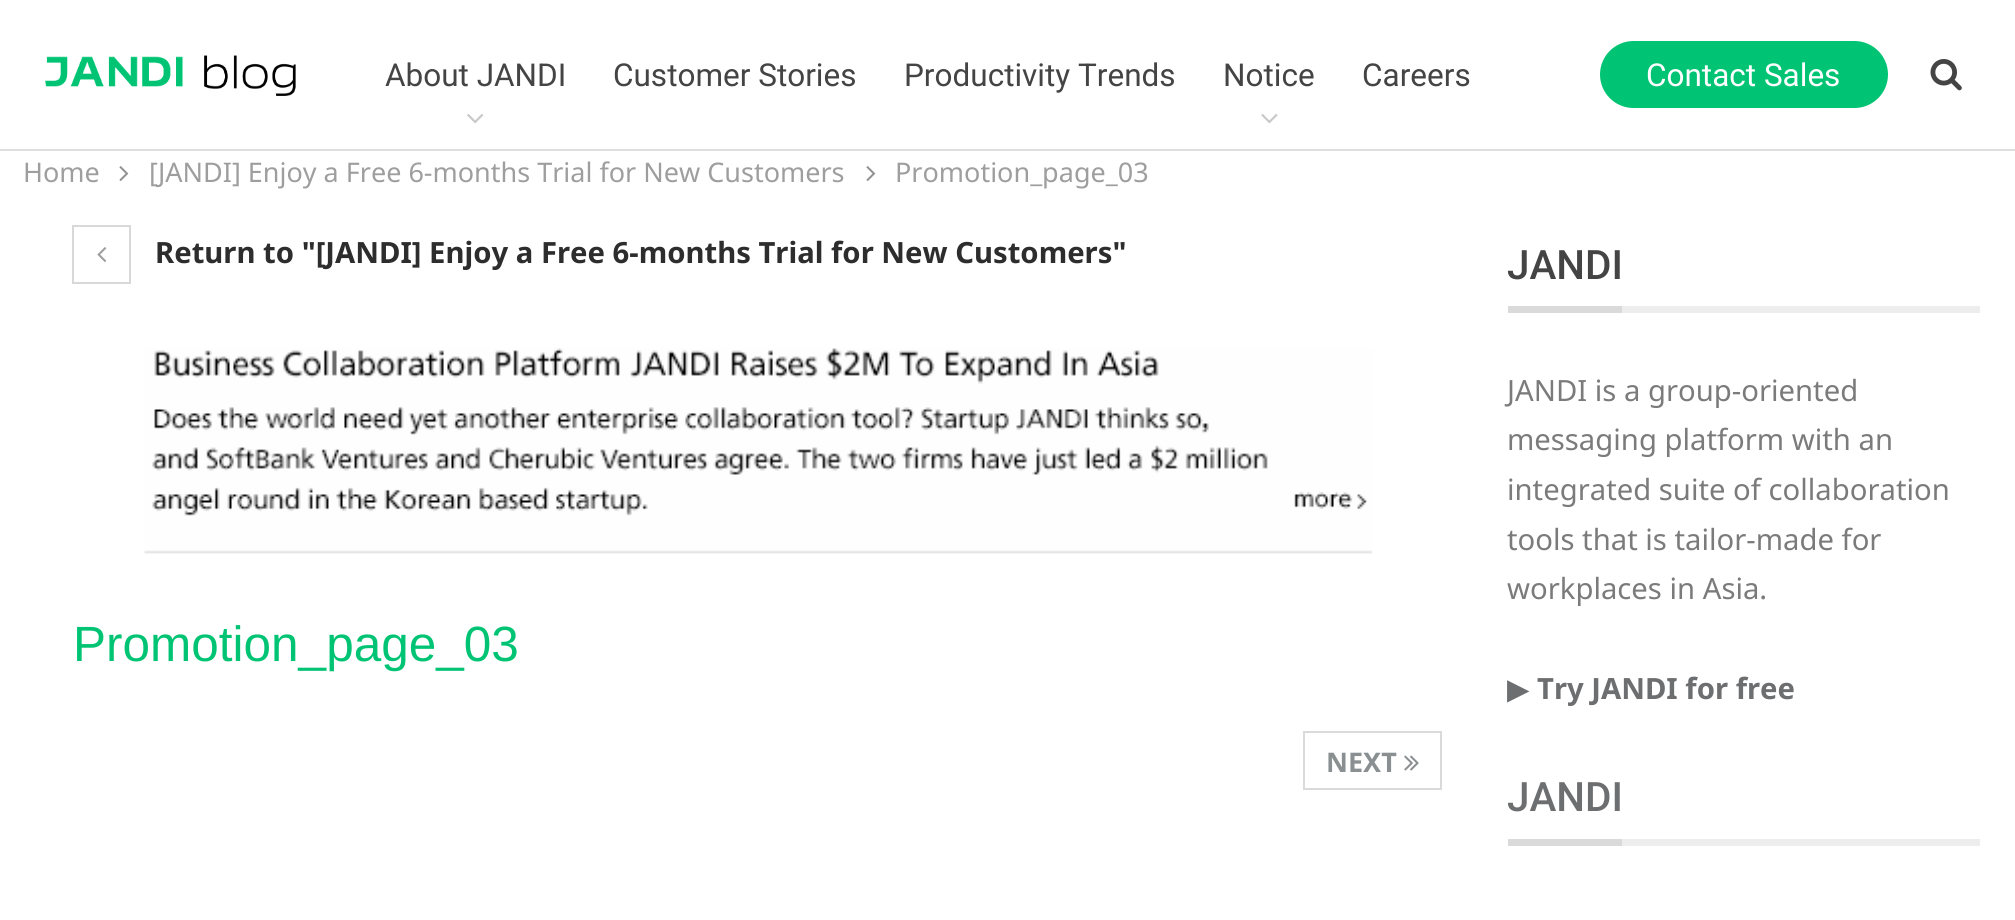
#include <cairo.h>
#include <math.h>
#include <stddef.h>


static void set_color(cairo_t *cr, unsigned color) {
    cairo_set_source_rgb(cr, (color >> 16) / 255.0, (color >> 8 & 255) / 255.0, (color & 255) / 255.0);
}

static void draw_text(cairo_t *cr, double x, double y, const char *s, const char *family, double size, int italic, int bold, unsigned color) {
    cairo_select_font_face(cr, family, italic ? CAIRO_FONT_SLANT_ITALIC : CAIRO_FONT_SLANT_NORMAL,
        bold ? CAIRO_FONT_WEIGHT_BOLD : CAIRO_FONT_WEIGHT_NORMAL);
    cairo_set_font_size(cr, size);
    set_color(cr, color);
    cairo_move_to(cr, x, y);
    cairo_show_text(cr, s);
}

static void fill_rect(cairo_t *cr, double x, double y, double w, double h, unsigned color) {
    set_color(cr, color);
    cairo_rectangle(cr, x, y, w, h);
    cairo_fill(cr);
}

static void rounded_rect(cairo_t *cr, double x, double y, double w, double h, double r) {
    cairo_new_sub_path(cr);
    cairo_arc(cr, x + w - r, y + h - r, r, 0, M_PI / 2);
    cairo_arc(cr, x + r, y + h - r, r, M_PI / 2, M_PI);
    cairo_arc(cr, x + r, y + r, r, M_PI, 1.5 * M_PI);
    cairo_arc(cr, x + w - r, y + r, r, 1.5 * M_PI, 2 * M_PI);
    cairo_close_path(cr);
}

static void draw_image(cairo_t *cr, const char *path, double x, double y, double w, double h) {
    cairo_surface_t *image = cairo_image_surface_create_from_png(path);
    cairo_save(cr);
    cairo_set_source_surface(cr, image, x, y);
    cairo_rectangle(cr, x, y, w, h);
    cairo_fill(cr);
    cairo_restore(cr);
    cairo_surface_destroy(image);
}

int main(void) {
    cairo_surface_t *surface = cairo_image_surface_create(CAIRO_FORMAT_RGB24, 2015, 920);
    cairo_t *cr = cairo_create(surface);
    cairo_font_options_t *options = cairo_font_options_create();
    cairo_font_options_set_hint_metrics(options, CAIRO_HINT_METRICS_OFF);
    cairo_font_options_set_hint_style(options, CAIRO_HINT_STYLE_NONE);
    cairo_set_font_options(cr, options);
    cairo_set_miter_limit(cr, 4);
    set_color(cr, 0xFFFFFF);
    cairo_paint(cr);
    fill_rect(cr, 0, 149, 2015, 2, 0xDEDEDE);
    draw_image(cr, "assets/img1.png", 45, 55, 251, 41);
    draw_text(cr, 385, 86, "About JANDI", "Roboto", 31.5, 0, 0, 0x444444);
    draw_image(cr, "assets/img2.png", 467, 114, 17, 10);
    draw_text(cr, 613, 86, "Customer Stories", "Roboto", 31.5, 0, 0, 0x444444);
    draw_text(cr, 904, 86, "Productivity Trends", "Roboto", 31.5, 0, 0, 0x444444);
    draw_text(cr, 1223, 86, "Notice", "Roboto", 31.5, 0, 0, 0x444444);
    draw_image(cr, "assets/img3.png", 1261, 114, 17, 10);
    draw_text(cr, 1362, 86, "Careers", "Roboto", 31.5, 0, 0, 0x444444);
    set_color(cr, 0x00C473);
    rounded_rect(cr, 1600, 41, 288, 67, 33.5);
    cairo_fill(cr);
    draw_text(cr, 1646, 86, "Contact Sales", "Roboto", 31.5, 0, 0, 0xFFFFFF);
    draw_image(cr, "assets/img4.png", 1930, 59, 32, 32);
    draw_text(cr, 23, 182, "Home", "Noto Sans", 27, 0, 0, 0x9E9E9E);
    draw_image(cr, "assets/img5.png", 119, 166, 10, 15);
    draw_text(cr, 149, 182, "[JANDI] Enjoy a Free 6-months Trial for New Customers", "Noto Sans", 27, 0, 0, 0x9E9E9E);
    draw_image(cr, "assets/img5.png", 866, 166, 10, 15);
    draw_text(cr, 895, 182, "Promotion_page_03", "Noto Sans", 27, 0, 0, 0x9E9E9E);
    cairo_rectangle(cr, 73, 226, 57, 57);
    set_color(cr, 0xD8D8D8);
    cairo_stroke(cr);
    draw_image(cr, "assets/img6.png", 97, 247, 10, 15);
    draw_text(cr, 155, 263, "Return to \"[JANDI] Enjoy a Free 6-months Trial for New Customers\"", "Noto Sans", 29.25, 0, 1, 0x2D2D2D);
    draw_image(cr, "assets/img7.png", 144, 348, 1229, 206);
    draw_text(cr, 73, 661, "Promotion_page_03", "Liberation Sans", 49.5, 0, 0, 0x00C473);
    cairo_rectangle(cr, 1304, 732, 137, 57);
    set_color(cr, 0xDADADA);
    cairo_stroke(cr);
    draw_text(cr, 1326, 772, "NEXT", "Noto Sans", 27, 0, 1, 0x8A8F92);
    draw_image(cr, "assets/img8.png", 1404, 755, 15, 16);
    draw_text(cr, 1507, 279, "JANDI", "Roboto Medium", 40.5, 0, 0, 0x444444);
    fill_rect(cr, 1508, 306, 114, 7, 0xDADADA);
    fill_rect(cr, 1622, 306, 358, 7, 0xEDEDED);
    draw_text(cr, 1507, 401, "JANDI is a group-oriented", "Noto Sans", 29.25, 0, 0, 0x7B7B7B);
    draw_text(cr, 1507, 450, "messaging platform with an", "Noto Sans", 29.25, 0, 0, 0x7B7B7B);
    draw_text(cr, 1507, 500, "integrated suite of collaboration", "Noto Sans", 29.25, 0, 0, 0x7B7B7B);
    draw_text(cr, 1507, 550, "tools that is tailor-made for", "Noto Sans", 29.25, 0, 0, 0x7B7B7B);
    draw_text(cr, 1507, 599, "workplaces in Asia.", "Noto Sans", 29.25, 0, 0, 0x7B7B7B);
    draw_text(cr, 1507, 699, "▶", "DejaVu Sans", 29.25, 0, 0, 0x6C6E70);
    draw_text(cr, 1537, 699, "Try JANDI for free", "Noto Sans", 29.25, 0, 1, 0x6C6E70);
    cairo_save(cr);
    cairo_rectangle(cr, 1508, 758, 472, 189);
    cairo_clip(cr);
    draw_text(cr, 1507, 811, "JANDI", "Roboto Medium", 40.5, 0, 0, 0x6C6E70);
    cairo_restore(cr);
    fill_rect(cr, 1508, 839, 114, 7, 0xDADADA);
    fill_rect(cr, 1622, 839, 358, 7, 0xEDEDED);
    cairo_surface_write_to_png(surface, "output.png");
    cairo_font_options_destroy(options);
    cairo_destroy(cr);
    cairo_surface_destroy(surface);
    return 0;
}
